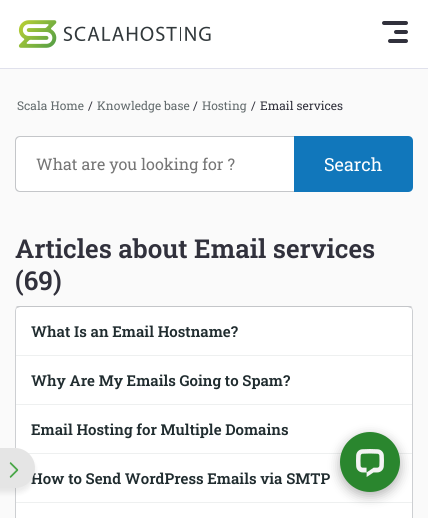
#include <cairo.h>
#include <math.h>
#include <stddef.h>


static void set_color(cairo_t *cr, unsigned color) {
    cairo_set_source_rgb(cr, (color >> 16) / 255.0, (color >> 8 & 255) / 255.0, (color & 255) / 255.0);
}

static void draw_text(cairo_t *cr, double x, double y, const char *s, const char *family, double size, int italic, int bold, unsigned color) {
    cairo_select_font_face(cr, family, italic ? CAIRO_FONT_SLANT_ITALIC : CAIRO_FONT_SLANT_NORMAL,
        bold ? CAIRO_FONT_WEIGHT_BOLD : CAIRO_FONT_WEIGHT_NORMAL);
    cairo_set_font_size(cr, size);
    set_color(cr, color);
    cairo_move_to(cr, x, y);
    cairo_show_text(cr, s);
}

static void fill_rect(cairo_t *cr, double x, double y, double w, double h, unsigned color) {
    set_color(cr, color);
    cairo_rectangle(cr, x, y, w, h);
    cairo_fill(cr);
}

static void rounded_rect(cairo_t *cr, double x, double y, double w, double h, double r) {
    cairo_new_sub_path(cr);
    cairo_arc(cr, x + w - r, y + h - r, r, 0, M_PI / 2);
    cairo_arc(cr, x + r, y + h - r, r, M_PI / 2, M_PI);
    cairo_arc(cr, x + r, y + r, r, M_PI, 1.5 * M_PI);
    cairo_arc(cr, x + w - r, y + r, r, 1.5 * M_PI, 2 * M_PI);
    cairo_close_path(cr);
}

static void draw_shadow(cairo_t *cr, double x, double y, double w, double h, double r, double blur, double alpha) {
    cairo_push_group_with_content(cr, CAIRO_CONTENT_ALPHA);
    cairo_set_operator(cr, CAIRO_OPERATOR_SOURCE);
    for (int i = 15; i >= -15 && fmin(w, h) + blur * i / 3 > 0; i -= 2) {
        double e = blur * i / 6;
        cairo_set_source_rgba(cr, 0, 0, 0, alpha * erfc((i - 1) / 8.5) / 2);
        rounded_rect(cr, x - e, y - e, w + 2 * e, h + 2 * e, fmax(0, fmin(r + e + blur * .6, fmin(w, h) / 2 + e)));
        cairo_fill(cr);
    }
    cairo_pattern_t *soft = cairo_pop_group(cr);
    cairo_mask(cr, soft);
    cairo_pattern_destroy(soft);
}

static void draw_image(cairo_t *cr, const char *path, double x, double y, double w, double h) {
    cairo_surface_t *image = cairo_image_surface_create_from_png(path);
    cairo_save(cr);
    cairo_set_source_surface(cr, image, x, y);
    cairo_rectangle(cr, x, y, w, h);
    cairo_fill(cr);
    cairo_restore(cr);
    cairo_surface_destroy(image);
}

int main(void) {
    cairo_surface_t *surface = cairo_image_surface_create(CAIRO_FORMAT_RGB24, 428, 518);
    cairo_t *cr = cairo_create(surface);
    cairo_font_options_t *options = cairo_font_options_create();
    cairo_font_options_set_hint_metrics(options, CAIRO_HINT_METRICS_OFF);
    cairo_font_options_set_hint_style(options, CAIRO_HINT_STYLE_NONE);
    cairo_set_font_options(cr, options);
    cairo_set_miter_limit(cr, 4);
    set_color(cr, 0xFFFFFF);
    cairo_paint(cr);
    fill_rect(cr, 0, 68, 428, 1, 0xE0E1EC);
    draw_image(cr, "assets/img1.png", 18, 20, 193, 28);
    set_color(cr, 0x31313C);
    rounded_rect(cr, 382, 21, 26, 4, 2);
    cairo_fill(cr);
    rounded_rect(cr, 394, 30, 14, 4, 2);
    cairo_fill(cr);
    rounded_rect(cr, 388, 39, 20, 4, 2);
    cairo_fill(cr);
    fill_rect(cr, 0, 69, 428, 449, 0xFAFAFA);
    fill_rect(cr, 15, 356, 1, 98, 0xCDCFD2);
    fill_rect(cr, 16, 405, 396, 48, 0xFFFFFF);
    fill_rect(cr, 28, 453, 384, 1, 0xEEF0F0);
    fill_rect(cr, 16, 454, 396, 48, 0xFFFFFF);
    fill_rect(cr, 15, 487, 1, 31, 0xCDCFD2);
    set_color(cr, 0x000000);
    draw_shadow(cr, -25, 453, 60, 40, 20, 2.5, 0.08);
    draw_text(cr, 31, 484, "How to Send WordPress Emails via SMTP", "Roboto Slab SemiBold", 15, 0, 0, 0x202C2F);
    set_color(cr, 0xE5E5E5);
    rounded_rect(cr, -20, 448, 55, 40, 20);
    cairo_fill(cr);
    draw_image(cr, "assets/img2.png", 9, 462, 10, 16);
    draw_text(cr, 17, 110, "Scala Home", "Roboto Slab", 12, 0, 0, 0x636B6D);
    draw_text(cr, 88, 110, "/", "Roboto Slab", 12, 0, 0, 0x31313C);
    draw_text(cr, 97, 110, "Knowledge base", "Roboto Slab", 12, 0, 0, 0x636B6D);
    draw_text(cr, 193, 110, "/", "Roboto Slab", 12, 0, 0, 0x31313C);
    draw_text(cr, 202, 110, "Hosting", "Roboto Slab", 12, 0, 0, 0x636B6D);
    draw_text(cr, 251, 110, "/", "Roboto Slab", 12, 0, 0, 0x31313C);
    draw_text(cr, 260, 110, "Email services", "Roboto Slab", 12, 0, 0, 0x31313C);
    set_color(cr, 0xFFFFFF);
    cairo_new_path(cr);
    cairo_move_to(cr, 20, 136);
    cairo_line_to(cr, 294, 136);
    cairo_line_to(cr, 294, 192);
    cairo_line_to(cr, 20, 192);
    cairo_curve_to(cr, 17, 192, 15, 190, 15, 187);
    cairo_line_to(cr, 15, 141);
    cairo_curve_to(cr, 15, 138, 17, 136, 20, 136);
    cairo_close_path(cr);
    cairo_fill(cr);
    set_color(cr, 0xC4C6C9);
    cairo_set_fill_rule(cr, CAIRO_FILL_RULE_EVEN_ODD);
    cairo_new_path(cr);
    cairo_move_to(cr, 20, 136);
    cairo_line_to(cr, 294, 136);
    cairo_line_to(cr, 294, 192);
    cairo_line_to(cr, 20, 192);
    cairo_curve_to(cr, 17, 192, 15, 190, 15, 187);
    cairo_line_to(cr, 15, 141);
    cairo_curve_to(cr, 15, 138, 17, 136, 20, 136);
    cairo_close_path(cr);
    cairo_move_to(cr, 20, 137);
    cairo_line_to(cr, 294, 137);
    cairo_line_to(cr, 294, 191);
    cairo_line_to(cr, 20, 191);
    cairo_curve_to(cr, 18, 191, 16, 189, 16, 187);
    cairo_line_to(cr, 16, 141);
    cairo_curve_to(cr, 16, 139, 18, 137, 20, 137);
    cairo_close_path(cr);
    cairo_fill(cr);
    draw_text(cr, 36, 170, "What are you looking for ?", "Roboto Slab", 16, 0, 0, 0x757575);
    set_color(cr, 0x1177BB);
    cairo_new_path(cr);
    cairo_move_to(cr, 294, 136);
    cairo_line_to(cr, 408, 136);
    cairo_curve_to(cr, 411, 136, 413, 138, 413, 141);
    cairo_line_to(cr, 413, 187);
    cairo_curve_to(cr, 413, 190, 411, 192, 408, 192);
    cairo_line_to(cr, 294, 192);
    cairo_close_path(cr);
    cairo_fill(cr);
    draw_text(cr, 324, 171, "Search", "Roboto Slab", 18, 0, 0, 0xFFFFFF);
    draw_text(cr, 15, 258, "Articles about Email services", "Roboto Slab SemiBold", 26, 0, 0, 0x31313C);
    draw_text(cr, 15, 290, "(69)", "Roboto Slab SemiBold", 26, 0, 0, 0x31313C);
    set_color(cr, 0xFFFFFF);
    cairo_new_path(cr);
    cairo_move_to(cr, 20, 306);
    cairo_line_to(cr, 408, 306);
    cairo_curve_to(cr, 411, 306, 413, 308, 413, 311);
    cairo_line_to(cr, 413, 356);
    cairo_line_to(cr, 15, 356);
    cairo_line_to(cr, 15, 311);
    cairo_curve_to(cr, 15, 308, 17, 306, 20, 306);
    cairo_close_path(cr);
    cairo_fill(cr);
    set_color(cr, 0xC4C6C9);
    cairo_set_fill_rule(cr, CAIRO_FILL_RULE_WINDING);
    cairo_new_path(cr);
    cairo_move_to(cr, 20, 306);
    cairo_curve_to(cr, 18, 306, 17, 306, 16, 307);
    cairo_line_to(cr, 17, 308);
    cairo_line_to(cr, 20, 307);
    cairo_line_to(cr, 408, 307);
    cairo_line_to(cr, 411, 308);
    cairo_line_to(cr, 412, 307);
    cairo_curve_to(cr, 411, 306, 410, 306, 408, 306);
    cairo_close_path(cr);
    cairo_fill(cr);
    set_color(cr, 0xCDCFD2);
    cairo_new_path(cr);
    cairo_move_to(cr, 412, 356);
    cairo_line_to(cr, 413, 356);
    cairo_line_to(cr, 413, 311);
    cairo_curve_to(cr, 413, 310, 412, 308, 412, 307);
    cairo_line_to(cr, 411, 308);
    cairo_curve_to(cr, 412, 309, 412, 310, 412, 311);
    cairo_close_path(cr);
    cairo_fill(cr);
    cairo_new_path(cr);
    cairo_move_to(cr, 15, 356);
    cairo_line_to(cr, 16, 356);
    cairo_line_to(cr, 16, 311);
    cairo_curve_to(cr, 16, 310, 16, 309, 17, 308);
    cairo_line_to(cr, 16, 307);
    cairo_curve_to(cr, 16, 308, 15, 310, 15, 311);
    cairo_close_path(cr);
    cairo_fill(cr);
    fill_rect(cr, 16, 355, 396, 1, 0xEEF0F0);
    draw_text(cr, 31, 337, "What Is an Email Hostname?", "Roboto Slab SemiBold", 15, 0, 0, 0x202C2F);
    fill_rect(cr, 16, 356, 396, 48, 0xFFFFFF);
    fill_rect(cr, 412, 356, 1, 162, 0xCDCFD2);
    fill_rect(cr, 16, 404, 396, 1, 0xEEF0F0);
    draw_text(cr, 31, 386, "Why Are My Emails Going to Spam?", "Roboto Slab SemiBold", 15, 0, 0, 0x202C2F);
    draw_text(cr, 31, 435, "Email Hosting for Multiple Domains", "Roboto Slab SemiBold", 15, 0, 0, 0x202C2F);
    fill_rect(cr, 16, 502, 396, 1, 0xEEF0F0);
    fill_rect(cr, 16, 503, 396, 15, 0xFFFFFF);
    set_color(cr, 0x000000);
    draw_shadow(cr, 340, 436, 60, 60, 30, 6, 0.3);
    set_color(cr, 0x2A862E);
    cairo_arc(cr, 370, 462, 30, 0, 2 * M_PI);
    cairo_fill(cr);
    draw_image(cr, "assets/img3.png", 356, 449, 28, 28);
    cairo_surface_write_to_png(surface, "output.png");
    cairo_font_options_destroy(options);
    cairo_destroy(cr);
    cairo_surface_destroy(surface);
    return 0;
}
